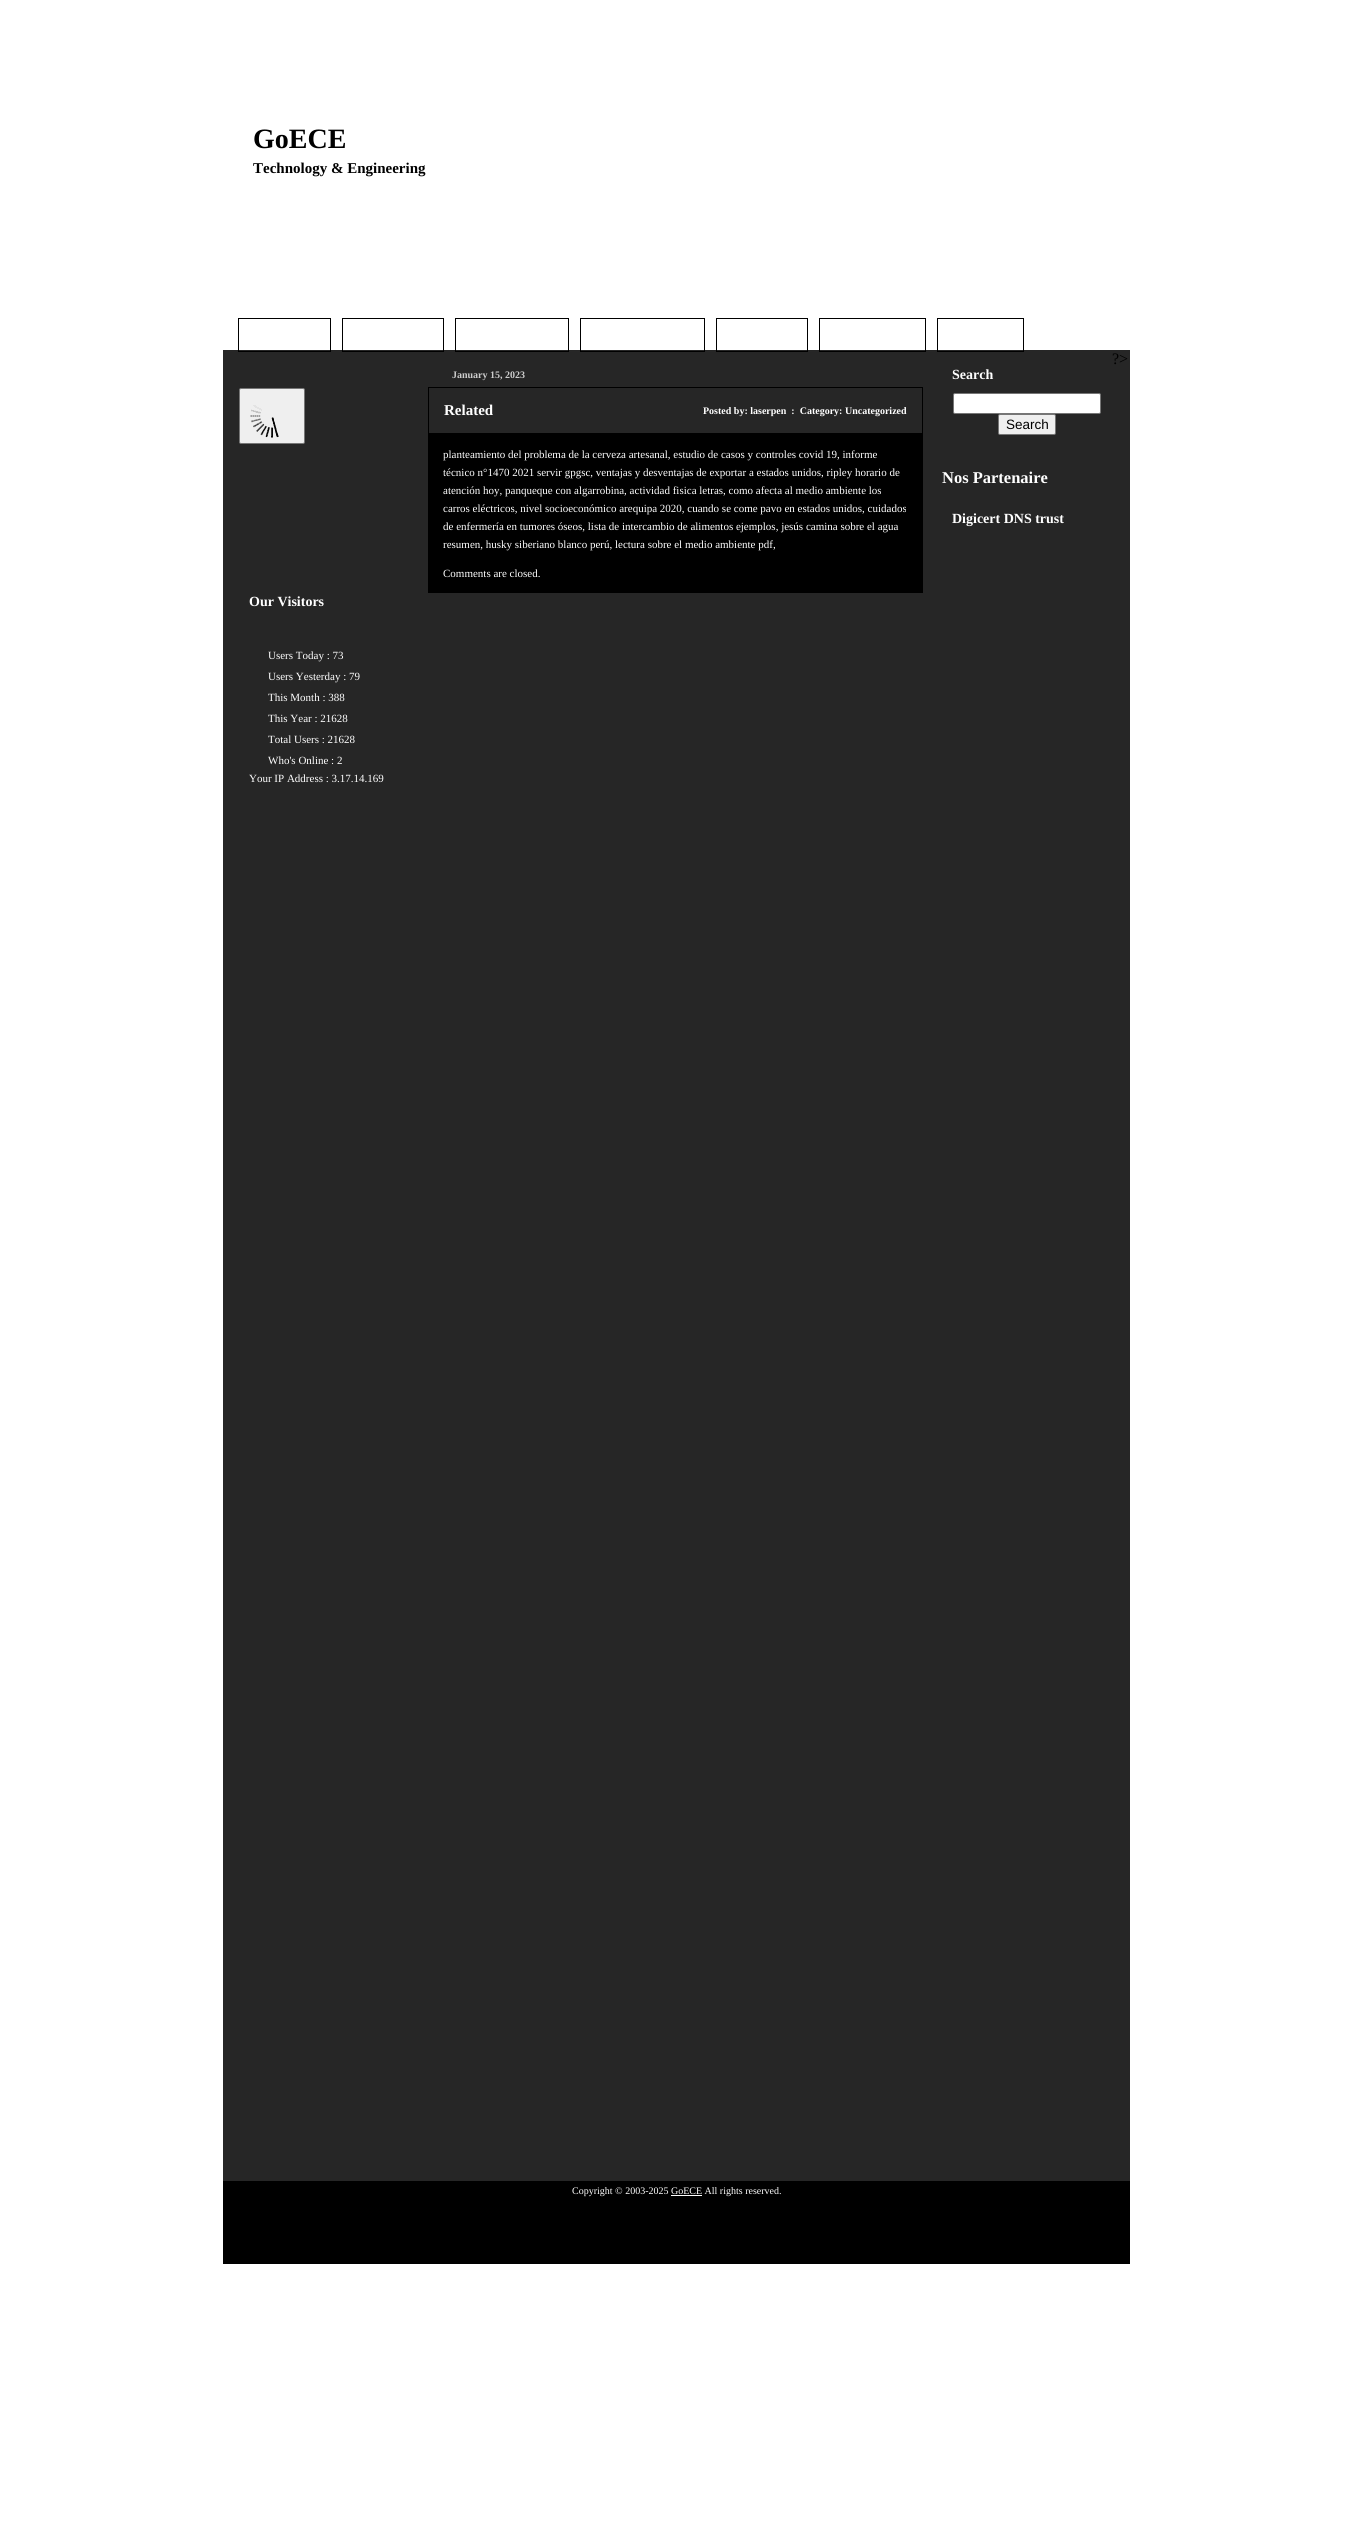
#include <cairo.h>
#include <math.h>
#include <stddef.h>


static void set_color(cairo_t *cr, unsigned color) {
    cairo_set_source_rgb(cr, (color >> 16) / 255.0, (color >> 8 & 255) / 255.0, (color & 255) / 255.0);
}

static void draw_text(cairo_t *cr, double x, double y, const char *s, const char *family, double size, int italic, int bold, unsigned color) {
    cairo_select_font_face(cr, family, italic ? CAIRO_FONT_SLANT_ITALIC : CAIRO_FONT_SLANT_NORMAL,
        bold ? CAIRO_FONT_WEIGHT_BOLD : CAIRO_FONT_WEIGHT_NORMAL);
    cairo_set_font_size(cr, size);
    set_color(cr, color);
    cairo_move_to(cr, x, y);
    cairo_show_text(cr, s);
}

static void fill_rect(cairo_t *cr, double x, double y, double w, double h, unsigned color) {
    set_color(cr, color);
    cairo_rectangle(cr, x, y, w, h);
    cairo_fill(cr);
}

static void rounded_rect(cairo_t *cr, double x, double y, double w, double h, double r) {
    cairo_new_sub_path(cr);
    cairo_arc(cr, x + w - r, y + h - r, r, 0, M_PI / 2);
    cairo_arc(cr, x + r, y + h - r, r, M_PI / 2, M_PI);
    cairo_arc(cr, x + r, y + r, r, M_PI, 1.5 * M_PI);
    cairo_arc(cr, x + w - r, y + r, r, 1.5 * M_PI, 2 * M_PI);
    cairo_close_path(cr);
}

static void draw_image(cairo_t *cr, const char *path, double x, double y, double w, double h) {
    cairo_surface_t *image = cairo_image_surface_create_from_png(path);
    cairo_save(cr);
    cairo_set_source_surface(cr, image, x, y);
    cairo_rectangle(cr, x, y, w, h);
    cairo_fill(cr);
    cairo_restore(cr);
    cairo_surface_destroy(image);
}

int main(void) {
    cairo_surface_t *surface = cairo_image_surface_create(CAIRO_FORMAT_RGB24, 1353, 2534);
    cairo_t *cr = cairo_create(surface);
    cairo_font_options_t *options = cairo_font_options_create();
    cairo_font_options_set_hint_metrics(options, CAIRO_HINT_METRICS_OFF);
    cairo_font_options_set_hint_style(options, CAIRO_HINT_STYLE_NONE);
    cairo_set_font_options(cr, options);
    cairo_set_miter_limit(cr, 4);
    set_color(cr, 0xFFFFFF);
    cairo_paint(cr);
    draw_text(cr, 253, 148, "GoECE", "Liberation Serif", 28, 0, 1, 0x000000);
    draw_text(cr, 253, 173, "Technology & Engineering", "Liberation Serif", 15, 0, 1, 0x000000);
    fill_rect(cr, 223, 350, 907, 1831, 0x262626);
    cairo_rectangle(cr, 238.5, 318.5, 92, 33);
    set_color(cr, 0x000000);
    cairo_set_line_width(cr, 1);
    cairo_stroke(cr);
    cairo_rectangle(cr, 342.5, 318.5, 101, 33);
    cairo_stroke(cr);
    cairo_rectangle(cr, 455.5, 318.5, 113, 33);
    cairo_stroke(cr);
    cairo_rectangle(cr, 580.5, 318.5, 124, 33);
    cairo_stroke(cr);
    cairo_rectangle(cr, 716.5, 318.5, 91, 33);
    cairo_stroke(cr);
    cairo_rectangle(cr, 819.5, 318.5, 106, 33);
    cairo_stroke(cr);
    cairo_rectangle(cr, 937.5, 318.5, 86, 33);
    cairo_stroke(cr);
    draw_text(cr, 1112, 364, "?>", "Liberation Serif", 16, 0, 0, 0x000000);
    draw_text(cr, 452, 378, "January 15, 2023", "Liberation Serif", 10, 0, 1, 0xCCCCCC);
    cairo_rectangle(cr, 428.5, 387.5, 494, 46);
    set_color(cr, 0x000000);
    cairo_stroke(cr);
    draw_text(cr, 444, 415, "Related", "Liberation Serif", 15, 0, 1, 0xFFFFFF);
    draw_text(cr, 703, 414, "Posted by: laserpen  :  Category: Uncategorized", "Liberation Serif", 10, 0, 1, 0xFFFFFF);
    fill_rect(cr, 428, 434, 495, 159, 0x000000);
    draw_text(cr, 443, 458, "planteamiento del problema de la cerveza artesanal, estudio de casos y controles covid 19, informe", "Liberation Serif", 11, 0, 0, 0xFFFFFF);
    draw_text(cr, 443, 476, "técnico n°1470 2021 servir gpgsc, ventajas y desventajas de exportar a estados unidos, ripley horario de", "Liberation Serif", 11, 0, 0, 0xFFFFFF);
    draw_text(cr, 443, 494, "atención hoy, panqueque con algarrobina, actividad fisica letras, como afecta al medio ambiente los", "Liberation Serif", 11, 0, 0, 0xFFFFFF);
    draw_text(cr, 443, 512, "carros eléctricos, nivel socioeconómico arequipa 2020, cuando se come pavo en estados unidos, cuidados", "Liberation Serif", 11, 0, 0, 0xFFFFFF);
    draw_text(cr, 443, 530, "de enfermería en tumores óseos, lista de intercambio de alimentos ejemplos, jesús camina sobre el agua", "Liberation Serif", 11, 0, 0, 0xFFFFFF);
    draw_text(cr, 443, 548, "resumen, husky siberiano blanco perú, lectura sobre el medio ambiente pdf,", "Liberation Serif", 11, 0, 0, 0xFFFFFF);
    draw_text(cr, 443, 577, "Comments are closed.", "Liberation Serif", 11, 0, 0, 0xFFFFFF);
    draw_text(cr, 952, 379, "Search", "Liberation Serif", 14, 0, 1, 0xFFFFFF);
    rounded_rect(cr, 953.5, 393.5, 147, 20, 1.5);
    cairo_fill_preserve(cr);
    set_color(cr, 0x767676);
    cairo_stroke(cr);
    set_color(cr, 0xEFEFEF);
    rounded_rect(cr, 998.5, 414.5, 57, 20, 1.5);
    cairo_fill_preserve(cr);
    set_color(cr, 0x767676);
    cairo_stroke(cr);
    draw_text(cr, 1006, 429, "Search", "Liberation Sans", 13.5, 0, 0, 0x000000);
    draw_text(cr, 942, 483, "Nos Partenaire", "Liberation Serif", 16.5, 0, 1, 0xFFFFFF);
    draw_text(cr, 952, 523, "Digicert DNS trust", "Liberation Serif", 14, 0, 1, 0xFFFFFF);
    set_color(cr, 0xEFEFEF);
    rounded_rect(cr, 239.5, 388.5, 65, 55, 1.5);
    cairo_fill_preserve(cr);
    set_color(cr, 0x767676);
    cairo_stroke(cr);
    draw_image(cr, "assets/img1.png", 250, 405, 29, 33);
    draw_text(cr, 249, 606, "Our Visitors", "Liberation Serif", 14, 0, 1, 0xFFFFFF);
    draw_text(cr, 268, 659, "Users Today : 73", "Liberation Serif", 11, 0, 0, 0xFFFFFF);
    draw_text(cr, 268, 680, "Users Yesterday : 79", "Liberation Serif", 11, 0, 0, 0xFFFFFF);
    draw_text(cr, 268, 701, "This Month : 388", "Liberation Serif", 11, 0, 0, 0xFFFFFF);
    draw_text(cr, 268, 722, "This Year : 21628", "Liberation Serif", 11, 0, 0, 0xFFFFFF);
    draw_text(cr, 268, 743, "Total Users : 21628", "Liberation Serif", 11, 0, 0, 0xFFFFFF);
    draw_text(cr, 268, 764, "Who's Online : 2", "Liberation Serif", 11, 0, 0, 0xFFFFFF);
    draw_text(cr, 249, 782, "Your IP Address : 3.17.14.169", "Liberation Serif", 11, 0, 0, 0xFFFFFF);
    fill_rect(cr, 223, 2181, 907, 83, 0x000000);
    draw_text(cr, 572, 2194, "Copyright © 2003-2025 GoECE All rights reserved.", "Liberation Serif", 10, 0, 0, 0xFFFFFF);
    fill_rect(cr, 671, 2195, 31, 1, 0xFFFFFF);
    cairo_surface_write_to_png(surface, "output.png");
    cairo_font_options_destroy(options);
    cairo_destroy(cr);
    cairo_surface_destroy(surface);
    return 0;
}
